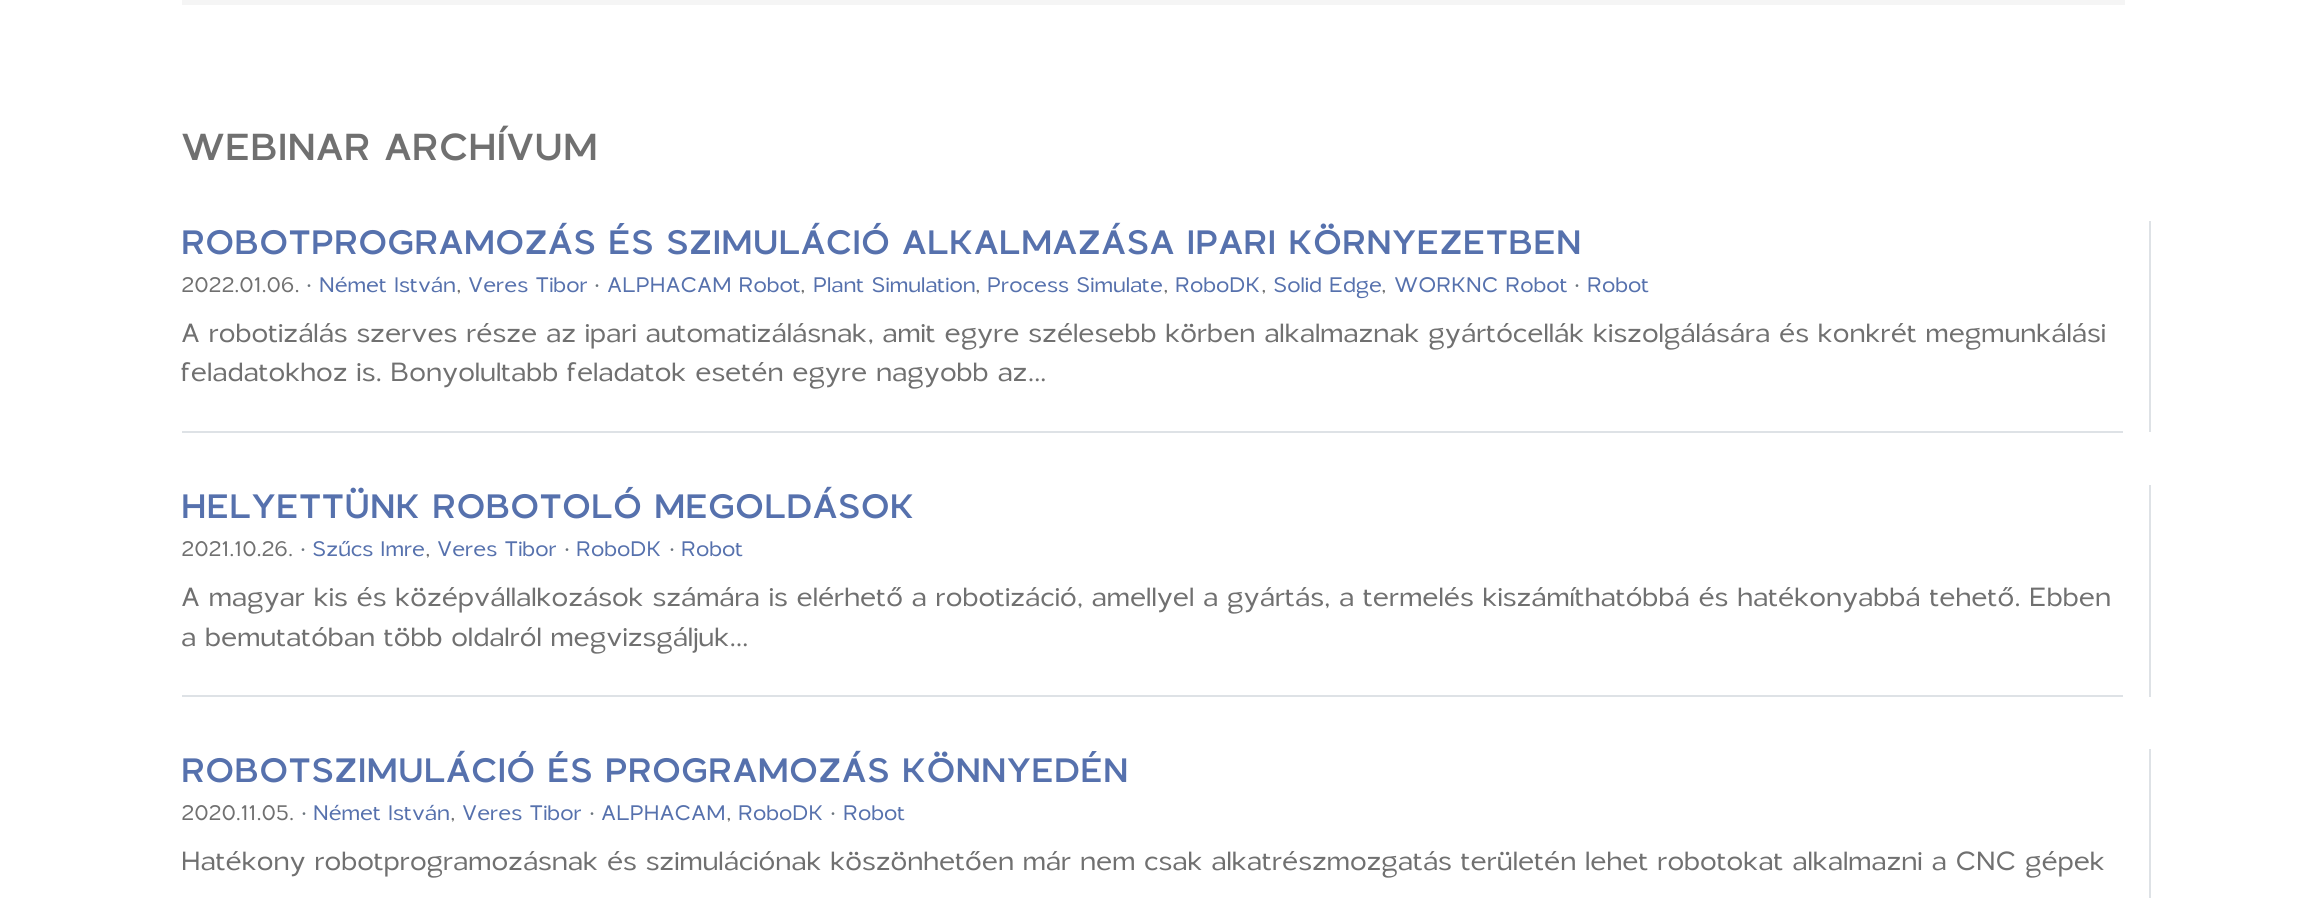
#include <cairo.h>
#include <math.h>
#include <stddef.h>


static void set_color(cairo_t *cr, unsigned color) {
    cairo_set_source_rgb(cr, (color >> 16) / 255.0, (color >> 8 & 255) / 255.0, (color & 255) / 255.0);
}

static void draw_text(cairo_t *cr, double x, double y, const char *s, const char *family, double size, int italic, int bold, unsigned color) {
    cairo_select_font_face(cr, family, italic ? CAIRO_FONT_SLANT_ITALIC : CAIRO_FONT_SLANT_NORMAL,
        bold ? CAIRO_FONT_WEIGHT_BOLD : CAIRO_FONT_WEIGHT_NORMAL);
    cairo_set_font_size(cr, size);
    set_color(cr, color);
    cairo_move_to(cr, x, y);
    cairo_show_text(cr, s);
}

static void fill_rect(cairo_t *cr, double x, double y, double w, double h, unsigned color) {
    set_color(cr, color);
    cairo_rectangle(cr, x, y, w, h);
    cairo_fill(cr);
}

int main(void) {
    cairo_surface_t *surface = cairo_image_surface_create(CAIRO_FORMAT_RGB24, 2304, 898);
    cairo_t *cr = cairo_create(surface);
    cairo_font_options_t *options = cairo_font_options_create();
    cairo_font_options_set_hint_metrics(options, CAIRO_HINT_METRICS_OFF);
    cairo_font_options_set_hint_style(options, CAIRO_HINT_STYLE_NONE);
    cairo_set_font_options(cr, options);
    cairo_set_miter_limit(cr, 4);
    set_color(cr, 0xFFFFFF);
    cairo_paint(cr);
    fill_rect(cr, 182, 0, 1943, 5, 0xF5F5F5);
    draw_text(cr, 181, 160, "WEBINAR ARCHÍVUM", "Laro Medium", 37.5, 0, 0, 0x707070);
    fill_rect(cr, 2149, 221, 2, 211, 0xDEE2E6);
    fill_rect(cr, 182, 431, 1941, 2, 0xDEE2E6);
    draw_text(cr, 181, 254, "ROBOTPROGRAMOZÁS ÉS SZIMULÁCIÓ ALKALMAZÁSA IPARI KÖRNYEZETBEN", "Laro Medium", 33.75, 0, 0, 0x5671AD);
    draw_text(cr, 181, 292, "2022.01.06.", "Laro", 21, 0, 0, 0x707070);
    draw_text(cr, 306, 292, "·", "Laro", 21, 0, 0, 0x6C757D);
    draw_text(cr, 319, 292, "Német István", "Laro", 21, 0, 0, 0x5671AD);
    draw_text(cr, 468, 292, "Veres Tibor", "Laro", 21, 0, 0, 0x5671AD);
    draw_text(cr, 594, 292, "·", "Laro", 21, 0, 0, 0x6C757D);
    draw_text(cr, 607, 292, "ALPHACAM Robot", "Laro", 21, 0, 0, 0x5671AD);
    draw_text(cr, 813, 292, "Plant Simulation", "Laro", 21, 0, 0, 0x5671AD);
    draw_text(cr, 987, 292, "Process Simulate", "Laro", 21, 0, 0, 0x5671AD);
    draw_text(cr, 1175, 292, "RoboDK", "Laro", 21, 0, 0, 0x5671AD);
    draw_text(cr, 1273, 292, "Solid Edge", "Laro", 21, 0, 0, 0x5671AD);
    draw_text(cr, 1394, 292, "WORKNC Robot", "Laro", 21, 0, 0, 0x5671AD);
    draw_text(cr, 1574, 292, "·", "Laro", 21, 0, 0, 0x6C757D);
    draw_text(cr, 1587, 292, "Robot", "Laro", 21, 0, 0, 0x5671AD);
    draw_text(cr, 456, 292, ",", "Laro", 21, 0, 0, 0x707070);
    draw_text(cr, 800, 292, ",", "Laro", 21, 0, 0, 0x707070);
    draw_text(cr, 975, 292, ",", "Laro", 21, 0, 0, 0x707070);
    draw_text(cr, 1163, 292, ",", "Laro", 21, 0, 0, 0x707070);
    draw_text(cr, 1261, 292, ",", "Laro", 21, 0, 0, 0x707070);
    draw_text(cr, 1381, 292, ",", "Laro", 21, 0, 0, 0x707070);
    draw_text(cr, 181, 342, "A robotizálás szerves része az ipari automatizálásnak, amit egyre szélesebb körben alkalmaznak gyártócellák kiszolgálására és konkrét megmunkálási", "Laro", 26.25, 0, 0, 0x707070);
    draw_text(cr, 181, 381, "feladatokhoz is. Bonyolultabb feladatok esetén egyre nagyobb az...", "Laro", 26.25, 0, 0, 0x707070);
    fill_rect(cr, 2149, 485, 2, 212, 0xDEE2E6);
    fill_rect(cr, 182, 695, 1941, 2, 0xDEE2E6);
    draw_text(cr, 181, 518, "HELYETTÜNK ROBOTOLÓ MEGOLDÁSOK", "Laro Medium", 33.75, 0, 0, 0x5671AD);
    draw_text(cr, 181, 556, "2021.10.26.", "Laro", 21, 0, 0, 0x707070);
    draw_text(cr, 300, 556, "·", "Laro", 21, 0, 0, 0x6C757D);
    draw_text(cr, 312, 556, "Szűcs Imre", "Laro", 21, 0, 0, 0x5671AD);
    draw_text(cr, 437, 556, "Veres Tibor", "Laro", 21, 0, 0, 0x5671AD);
    draw_text(cr, 564, 556, "·", "Laro", 21, 0, 0, 0x6C757D);
    draw_text(cr, 576, 556, "RoboDK", "Laro", 21, 0, 0, 0x5671AD);
    draw_text(cr, 669, 556, "·", "Laro", 21, 0, 0, 0x6C757D);
    draw_text(cr, 681, 556, "Robot", "Laro", 21, 0, 0, 0x5671AD);
    draw_text(cr, 425, 556, ",", "Laro", 21, 0, 0, 0x707070);
    draw_text(cr, 181, 606, "A magyar kis és középvállalkozások számára is elérhető a robotizáció, amellyel a gyártás, a termelés kiszámíthatóbbá és hatékonyabbá tehető. Ebben", "Laro", 26.25, 0, 0, 0x707070);
    draw_text(cr, 181, 646, "a bemutatóban több oldalról megvizsgáljuk...", "Laro", 26.25, 0, 0, 0x707070);
    fill_rect(cr, 2149, 749, 2, 149, 0xDEE2E6);
    draw_text(cr, 181, 782, "ROBOTSZIMULÁCIÓ ÉS PROGRAMOZÁS KÖNNYEDÉN", "Laro Medium", 33.75, 0, 0, 0x5671AD);
    draw_text(cr, 181, 820, "2020.11.05.", "Laro", 21, 0, 0, 0x707070);
    draw_text(cr, 301, 820, "·", "Laro", 21, 0, 0, 0x6C757D);
    draw_text(cr, 313, 820, "Német István", "Laro", 21, 0, 0, 0x5671AD);
    draw_text(cr, 462, 820, "Veres Tibor", "Laro", 21, 0, 0, 0x5671AD);
    draw_text(cr, 589, 820, "·", "Laro", 21, 0, 0, 0x6C757D);
    draw_text(cr, 601, 820, "ALPHACAM", "Laro", 21, 0, 0, 0x5671AD);
    draw_text(cr, 738, 820, "RoboDK", "Laro", 21, 0, 0, 0x5671AD);
    draw_text(cr, 830, 820, "·", "Laro", 21, 0, 0, 0x6C757D);
    draw_text(cr, 843, 820, "Robot", "Laro", 21, 0, 0, 0x5671AD);
    draw_text(cr, 450, 820, ",", "Laro", 21, 0, 0, 0x707070);
    draw_text(cr, 726, 820, ",", "Laro", 21, 0, 0, 0x707070);
    draw_text(cr, 181, 870, "Hatékony robotprogramozásnak és szimulációnak köszönhetően már nem csak alkatrészmozgatás területén lehet robotokat alkalmazni a CNC gépek", "Laro", 26.25, 0, 0, 0x707070);
    cairo_surface_write_to_png(surface, "output.png");
    cairo_font_options_destroy(options);
    cairo_destroy(cr);
    cairo_surface_destroy(surface);
    return 0;
}
